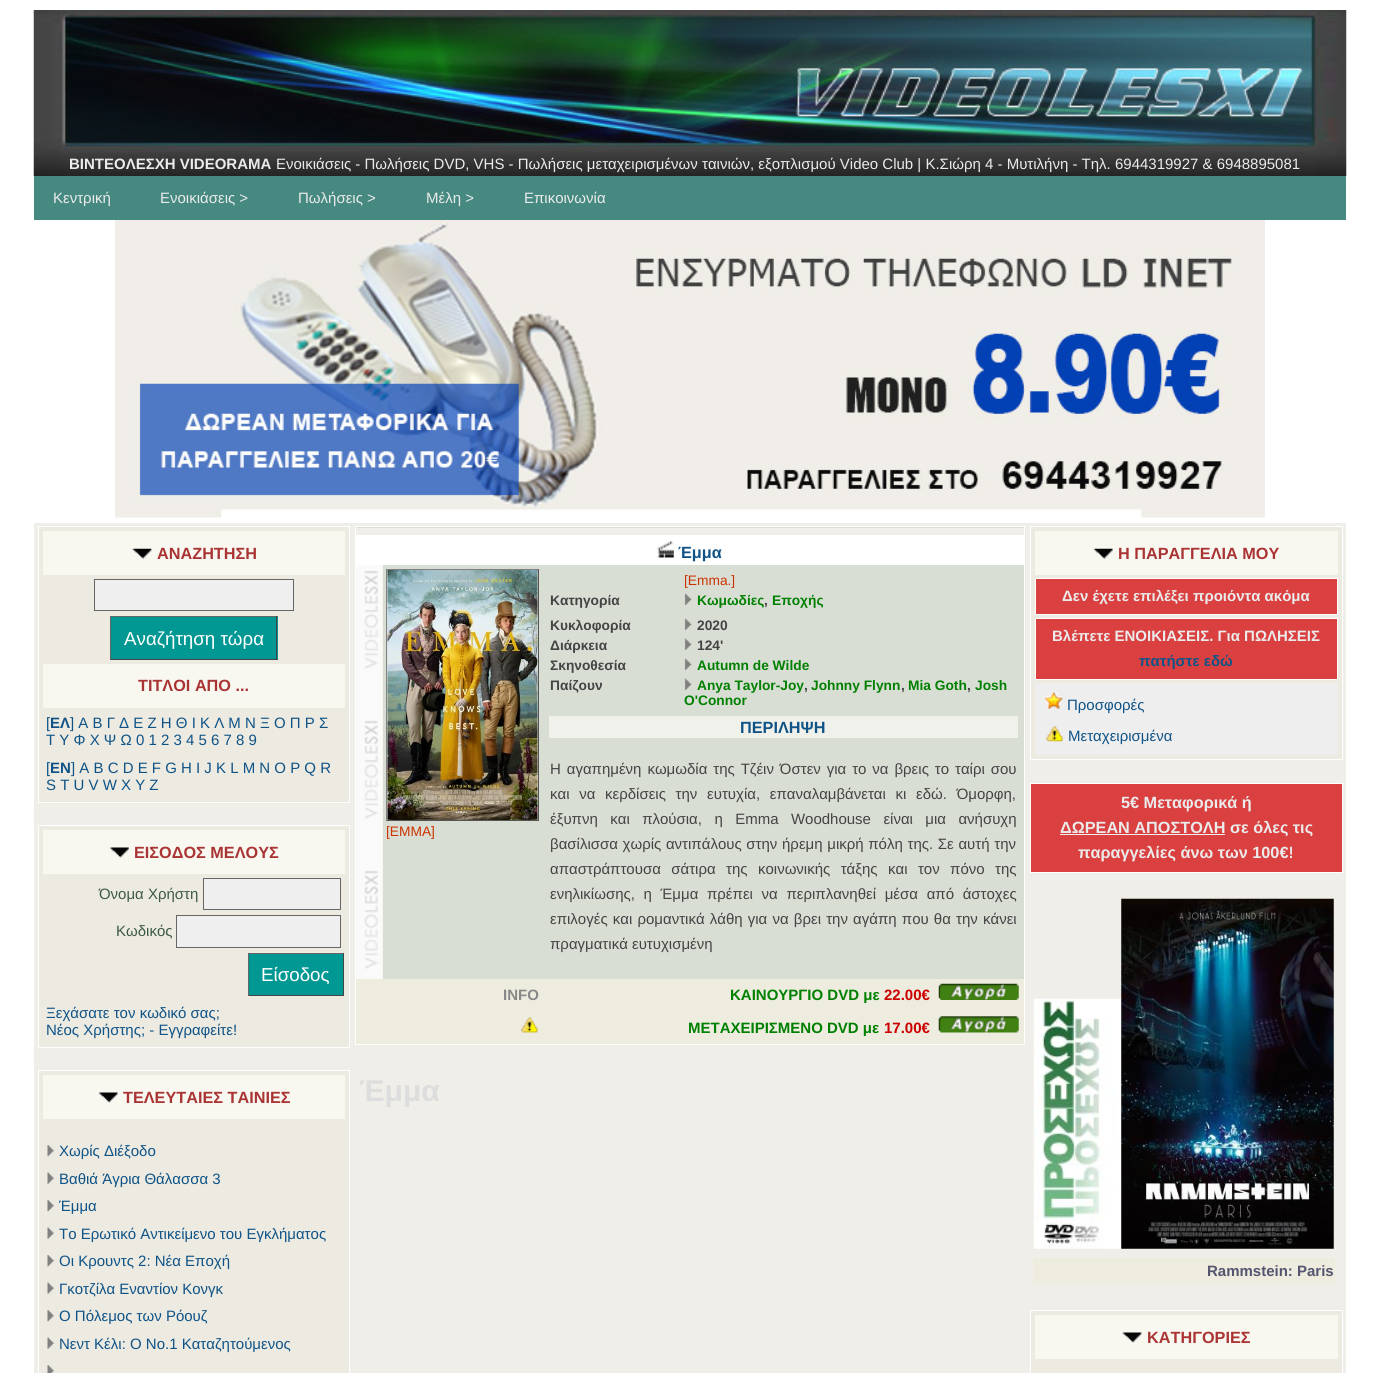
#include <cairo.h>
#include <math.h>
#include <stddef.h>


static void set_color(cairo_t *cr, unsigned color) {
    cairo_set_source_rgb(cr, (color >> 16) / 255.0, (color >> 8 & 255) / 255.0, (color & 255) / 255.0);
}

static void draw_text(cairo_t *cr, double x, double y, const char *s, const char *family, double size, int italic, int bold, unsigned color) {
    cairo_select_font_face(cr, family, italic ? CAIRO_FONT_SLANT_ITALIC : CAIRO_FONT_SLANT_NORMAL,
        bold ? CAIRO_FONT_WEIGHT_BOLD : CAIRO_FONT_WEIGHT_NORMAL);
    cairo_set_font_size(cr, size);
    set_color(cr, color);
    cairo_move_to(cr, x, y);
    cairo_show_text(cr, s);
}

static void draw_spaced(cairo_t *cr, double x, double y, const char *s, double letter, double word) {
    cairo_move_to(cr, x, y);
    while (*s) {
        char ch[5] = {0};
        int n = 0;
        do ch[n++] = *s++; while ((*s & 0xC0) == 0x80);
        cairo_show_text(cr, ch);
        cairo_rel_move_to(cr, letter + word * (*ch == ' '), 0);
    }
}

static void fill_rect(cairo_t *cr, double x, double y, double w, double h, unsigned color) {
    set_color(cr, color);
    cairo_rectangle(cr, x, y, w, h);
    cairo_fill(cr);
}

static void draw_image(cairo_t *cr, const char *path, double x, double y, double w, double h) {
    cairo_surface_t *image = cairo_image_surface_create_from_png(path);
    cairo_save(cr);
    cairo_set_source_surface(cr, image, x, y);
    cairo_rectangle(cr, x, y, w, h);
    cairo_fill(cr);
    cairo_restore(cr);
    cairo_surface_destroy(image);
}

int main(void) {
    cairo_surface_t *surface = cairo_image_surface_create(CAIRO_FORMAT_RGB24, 1380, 1373);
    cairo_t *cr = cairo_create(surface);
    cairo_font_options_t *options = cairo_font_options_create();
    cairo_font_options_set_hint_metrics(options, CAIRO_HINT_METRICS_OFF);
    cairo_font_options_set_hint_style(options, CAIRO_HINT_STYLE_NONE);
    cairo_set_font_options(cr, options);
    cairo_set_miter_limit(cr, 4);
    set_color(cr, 0xFFFFFF);
    cairo_paint(cr);
    draw_image(cr, "assets/img1.png", 33, 10, 1314, 167);
    draw_text(cr, 69, 169, "ΒΙΝΤΕΟΛΕΣΧΗ VIDEORAMA", "Liberation Sans", 15, 0, 1, 0xEBEBEB);
    draw_text(cr, 276, 169, "Ενοικιάσεις - Πωλήσεις DVD, VHS - Πωλήσεις μεταχειρισμένων ταινιών, εξοπλισμού Video Club | Κ.Σιώρη 4 - Μυτιλήνη - Τηλ. 6944319927 & 6948895081", "Liberation Sans", 15, 0, 0, 0xEBEBEB);
    fill_rect(cr, 34, 176, 1312, 44, 0x468981);
    draw_text(cr, 53, 203, "Κεντρική", "Liberation Sans", 15, 0, 0, 0xEBEBEB);
    draw_text(cr, 160, 203, "Ενοικιάσεις >", "Liberation Sans", 15, 0, 0, 0xEBEBEB);
    draw_text(cr, 298, 203, "Πωλήσεις >", "Liberation Sans", 15, 0, 0, 0xEBEBEB);
    draw_text(cr, 426, 203, "Μέλη >", "Liberation Sans", 15, 0, 0, 0xEBEBEB);
    draw_text(cr, 524, 203, "Επικοινωνία", "Liberation Sans", 15, 0, 0, 0xEBEBEB);
    draw_image(cr, "assets/img2.png", 115, 220, 1150, 298);
    fill_rect(cr, 34, 523, 1312, 850, 0xF0EEE8);
    set_color(cr, 0xECEAE1);
    cairo_rectangle(cr, 38.5, 526.5, 311, 276);
    cairo_fill_preserve(cr);
    set_color(cr, 0xFFFFFF);
    cairo_set_line_width(cr, 1);
    cairo_stroke(cr);
    fill_rect(cr, 43, 531, 302, 44, 0xF8F8F1);
    draw_image(cr, "assets/img3.png", 132, 548, 20, 11);
    draw_text(cr, 157, 559, "ΑΝΑΖΗΤΗΣΗ", "Liberation Sans", 16.25, 0, 1, 0xAA3333);
    set_color(cr, 0xEFEFEF);
    cairo_rectangle(cr, 94.5, 579.5, 199, 31);
    cairo_fill_preserve(cr);
    set_color(cr, 0x666666);
    cairo_stroke(cr);
    fill_rect(cr, 111, 617, 167, 42, 0x019894);
    fill_rect(cr, 110, 616, 168, 1, 0x666666);
    fill_rect(cr, 276, 616, 1, 44, 0x444444);
    fill_rect(cr, 110, 659, 168, 1, 0x444444);
    fill_rect(cr, 110, 616, 1, 44, 0x666666);
    draw_text(cr, 124, 645, "Αναζήτηση τώρα", "Liberation Sans", 18.75, 0, 0, 0xFFFFFF);
    fill_rect(cr, 43, 664, 302, 44, 0xF8F8F1);
    draw_text(cr, 138, 691, "ΤΙΤΛΟΙ ΑΠΟ ...", "Liberation Sans", 16.25, 0, 1, 0xAA3333);
    draw_text(cr, 46, 728, "[", "Liberation Sans", 15, 0, 0, 0x0F5387);
    draw_text(cr, 50, 728, "ΕΛ", "Liberation Sans", 15, 0, 1, 0x0F5387);
    draw_text(cr, 70, 728, "] Α Β Γ Δ Ε Ζ Η Θ Ι Κ Λ Μ Ν Ξ Ο Π Ρ Σ", "Liberation Sans", 15, 0, 0, 0x0F5387);
    draw_text(cr, 46, 745, "Τ Υ Φ Χ Ψ Ω 0 1 2 3 4 5 6 7 8 9", "Liberation Sans", 15, 0, 0, 0x0F5387);
    draw_text(cr, 46, 773, "[", "Liberation Sans", 15, 0, 0, 0x0F5387);
    draw_text(cr, 50, 773, "ΕΝ", "Liberation Sans", 15, 0, 1, 0x0F5387);
    draw_text(cr, 71, 773, "] A B C D E F G H I J K L M N O P Q R", "Liberation Sans", 15, 0, 0, 0x0F5387);
    draw_text(cr, 46, 790, "S T U V W X Y Z", "Liberation Sans", 15, 0, 0, 0x0F5387);
    set_color(cr, 0xECEAE1);
    cairo_rectangle(cr, 38.5, 825.5, 311, 222);
    cairo_fill_preserve(cr);
    set_color(cr, 0xFFFFFF);
    cairo_stroke(cr);
    fill_rect(cr, 43, 830, 302, 44, 0xF8F8F1);
    draw_image(cr, "assets/img4.png", 109, 847, 20, 11);
    draw_text(cr, 134, 858, "ΕΙΣΟΔΟΣ ΜΕΛΟΥΣ", "Liberation Sans", 16.25, 0, 1, 0xAA3333);
    draw_text(cr, 99, 899, "Όνομα Χρήστη", "Liberation Sans", 15, 0, 0, 0x3D5A46);
    set_color(cr, 0xEFEFEF);
    cairo_rectangle(cr, 203.5, 878.5, 137, 31);
    cairo_fill_preserve(cr);
    set_color(cr, 0x666666);
    cairo_stroke(cr);
    draw_text(cr, 116, 936, "Κωδικός", "Liberation Sans", 15, 0, 0, 0x3D5A46);
    set_color(cr, 0xEFEFEF);
    cairo_rectangle(cr, 176.5, 915.5, 164, 32);
    cairo_fill_preserve(cr);
    set_color(cr, 0x666666);
    cairo_stroke(cr);
    fill_rect(cr, 249, 954, 94, 41, 0x019894);
    fill_rect(cr, 248, 953, 96, 1, 0x666666);
    fill_rect(cr, 343, 953, 1, 43, 0x444444);
    fill_rect(cr, 248, 995, 96, 1, 0x444444);
    fill_rect(cr, 248, 953, 1, 43, 0x666666);
    draw_text(cr, 261, 981, "Είσοδος", "Liberation Sans", 18.75, 0, 0, 0xFFFFFF);
    draw_text(cr, 46, 1018, "Ξεχάσατε τον κωδικό σας;", "Liberation Sans", 15, 0, 0, 0x0F5387);
    draw_text(cr, 46, 1035, "Νέος Χρήστης; - Εγγραφείτε!", "Liberation Sans", 15, 0, 0, 0x0F5387);
    set_color(cr, 0xECEAE1);
    cairo_rectangle(cr, 38.5, 1070.5, 311, 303);
    cairo_fill_preserve(cr);
    set_color(cr, 0xFFFFFF);
    cairo_stroke(cr);
    fill_rect(cr, 43, 1075, 302, 44, 0xF8F8F1);
    draw_image(cr, "assets/img5.png", 98, 1092, 20, 11);
    draw_text(cr, 123, 1103, "ΤΕΛΕΥΤΑΙΕΣ ΤΑΙΝΙΕΣ", "Liberation Sans", 16.25, 0, 1, 0xAA3333);
    draw_image(cr, "assets/img6.png", 47, 1145, 7, 12);
    draw_text(cr, 59, 1156, "Χωρίς Διέξοδο", "Liberation Sans", 15, 0, 0, 0x0F5387);
    draw_image(cr, "assets/img7.png", 47, 1172, 7, 12);
    draw_text(cr, 59, 1184, "Βαθιά Άγρια Θάλασσα 3", "Liberation Sans", 15, 0, 0, 0x0F5387);
    draw_image(cr, "assets/img6.png", 47, 1200, 7, 12);
    draw_text(cr, 59, 1211, "Έμμα", "Liberation Sans", 15, 0, 0, 0x0F5387);
    draw_image(cr, "assets/img8.png", 47, 1227, 7, 12);
    draw_text(cr, 59, 1239, "Το Ερωτικό Αντικείμενο του Εγκλήματος", "Liberation Sans", 15, 0, 0, 0x0F5387);
    draw_image(cr, "assets/img6.png", 47, 1255, 7, 12);
    draw_text(cr, 59, 1266, "Οι Κρουντς 2: Νέα Εποχή", "Liberation Sans", 15, 0, 0, 0x0F5387);
    draw_image(cr, "assets/img8.png", 47, 1282, 7, 12);
    draw_text(cr, 59, 1294, "Γκοτζίλα Εναντίον Κονγκ", "Liberation Sans", 15, 0, 0, 0x0F5387);
    draw_image(cr, "assets/img6.png", 47, 1310, 7, 12);
    draw_text(cr, 59, 1321, "Ο Πόλεμος των Ρόουζ", "Liberation Sans", 15, 0, 0, 0x0F5387);
    draw_image(cr, "assets/img8.png", 47, 1337, 7, 12);
    draw_text(cr, 59, 1349, "Νεντ Κέλι: Ο Νο.1 Καταζητούμενος", "Liberation Sans", 15, 0, 0, 0x0F5387);
    draw_image(cr, "assets/img9.png", 47, 1365, 7, 8);
    fill_rect(cr, 356, 527, 668, 452, 0xD9DED5);
    fill_rect(cr, 355, 526, 670, 1, 0xFFFFFF);
    fill_rect(cr, 356, 528, 669, 7, 0xF0EEE8);
    fill_rect(cr, 1024, 526, 1, 519, 0xFFFFFF);
    fill_rect(cr, 355, 1044, 670, 1, 0xFFFFFF);
    fill_rect(cr, 355, 526, 1, 519, 0xFFFFFF);
    fill_rect(cr, 356, 535, 668, 30, 0xFFFFFF);
    draw_image(cr, "assets/img10.png", 657, 541, 17, 17);
    draw_text(cr, 678, 558, "Έμμα", "Liberation Sans", 16.25, 0, 1, 0x0F5387);
    fill_rect(cr, 356, 565, 27, 414, 0xF1F1EB);
    draw_image(cr, "assets/img11.png", 356, 565, 27, 414);
    fill_rect(cr, 386, 569, 153, 1, 0x808080);
    fill_rect(cr, 538, 569, 1, 252, 0x555555);
    fill_rect(cr, 386, 820, 153, 1, 0x555555);
    fill_rect(cr, 386, 569, 1, 252, 0x808080);
    draw_image(cr, "assets/img12.png", 387, 570, 151, 250);
    draw_text(cr, 386, 836, "[ΕΜΜΑ]", "Liberation Sans", 13.75, 0, 0, 0xCC3300);
    draw_text(cr, 684, 585, "[Emma.]", "Liberation Sans", 13.75, 0, 0, 0xCC3300);
    draw_text(cr, 550, 605, "Κατηγορία", "Liberation Sans", 13.75, 0, 1, 0x444444);
    draw_image(cr, "assets/img13.png", 684, 593, 8, 12);
    draw_text(cr, 697, 605, "Κωμωδίες", "Liberation Sans", 13.75, 0, 1, 0x008000);
    draw_text(cr, 764, 605, ",", "Liberation Sans", 13.75, 0, 1, 0x444444);
    draw_text(cr, 772, 605, "Εποχής", "Liberation Sans", 13.75, 0, 1, 0x008000);
    draw_text(cr, 550, 630, "Κυκλοφορία", "Liberation Sans", 13.75, 0, 1, 0x444444);
    draw_image(cr, "assets/img13.png", 684, 618, 8, 12);
    draw_text(cr, 697, 630, "2020", "Liberation Sans", 13.75, 0, 1, 0x444444);
    draw_text(cr, 550, 650, "Διάρκεια", "Liberation Sans", 13.75, 0, 1, 0x444444);
    draw_image(cr, "assets/img13.png", 684, 638, 8, 12);
    draw_text(cr, 697, 650, "124'", "Liberation Sans", 13.75, 0, 1, 0x444444);
    draw_text(cr, 550, 670, "Σκηνοθεσία", "Liberation Sans", 13.75, 0, 1, 0x444444);
    draw_image(cr, "assets/img13.png", 684, 658, 8, 12);
    draw_text(cr, 697, 670, "Autumn de Wilde", "Liberation Sans", 13.75, 0, 1, 0x008000);
    draw_text(cr, 550, 690, "Παίζουν", "Liberation Sans", 13.75, 0, 1, 0x444444);
    draw_image(cr, "assets/img13.png", 684, 678, 8, 12);
    draw_text(cr, 697, 690, "Anya Taylor-Joy", "Liberation Sans", 13.75, 0, 1, 0x008000);
    draw_text(cr, 804, 690, ",", "Liberation Sans", 13.75, 0, 1, 0x444444);
    draw_text(cr, 811, 690, "Johnny Flynn", "Liberation Sans", 13.75, 0, 1, 0x008000);
    draw_text(cr, 901, 690, ",", "Liberation Sans", 13.75, 0, 1, 0x444444);
    draw_text(cr, 908, 690, "Mia Goth", "Liberation Sans", 13.75, 0, 1, 0x008000);
    draw_text(cr, 967, 690, ",", "Liberation Sans", 13.75, 0, 1, 0x444444);
    draw_text(cr, 975, 690, "Josh", "Liberation Sans", 13.75, 0, 1, 0x008000);
    draw_text(cr, 684, 705, "O'Connor", "Liberation Sans", 13.75, 0, 1, 0x008000);
    fill_rect(cr, 549, 716, 469, 22, 0xF1F1EB);
    draw_text(cr, 740, 733, "ΠΕΡΙΛΗΨΗ", "Liberation Sans", 16.25, 0, 1, 0x0F5387);
    cairo_select_font_face(cr, "Liberation Sans", CAIRO_FONT_SLANT_NORMAL, CAIRO_FONT_WEIGHT_NORMAL);
    cairo_set_font_size(cr, 15);
    set_color(cr, 0x444444);
    draw_spaced(cr, 550, 774, "Η αγαπημένη κωμωδία της Τζέιν Όστεν για το να βρεις το ταίρι σου", 0, 1.75);
    draw_spaced(cr, 550, 799, "και να κερδίσεις την ευτυχία, επαναλαμβάνεται κι εδώ. Όμορφη,", 0, 5.5);
    draw_spaced(cr, 550, 824, "έξυπνη και πλούσια, η Emma Woodhouse είναι μια ανήσυχη", 0, 8.25);
    draw_spaced(cr, 550, 849, "βασίλισσα χωρίς αντιπάλους στην ήρεμη μικρή πόλη της. Σε αυτή την", 0, 0.5);
    draw_spaced(cr, 550, 874, "απαστράπτουσα σάτιρα της κοινωνικής τάξης και τον πόνο της", 0, 6.25);
    draw_spaced(cr, 550, 899, "ενηλικίωσης, η Έμμα πρέπει να περιπλανηθεί μέσα από άστοχες", 0, 4.5);
    draw_spaced(cr, 550, 924, "επιλογές και ρομαντικά λάθη για να βρει την αγάπη που θα την κάνει", 0, 1);
    draw_text(cr, 550, 949, "πραγματικά ευτυχισμένη", "Liberation Sans", 15, 0, 0, 0x444444);
    fill_rect(cr, 356, 979, 668, 65, 0xEDECDF);
    draw_text(cr, 503, 1000, "INFO", "Liberation Sans", 15, 0, 1, 0x888888);
    draw_text(cr, 730, 1000, "ΚΑΙΝΟΥΡΓΙΟ DVD με", "Liberation Sans", 15, 0, 1, 0x008000);
    draw_text(cr, 884, 1000, "22.00€", "Liberation Sans", 15, 0, 1, 0xCC0000);
    draw_image(cr, "assets/img14.png", 938, 983, 81, 17);
    draw_image(cr, "assets/img15.png", 521, 1017, 17, 16);
    draw_text(cr, 688, 1033, "ΜΕΤΑΧΕΙΡΙΣΜΕΝΟ DVD με", "Liberation Sans", 15, 0, 1, 0x008000);
    draw_text(cr, 884, 1033, "17.00€", "Liberation Sans", 15, 0, 1, 0xCC0000);
    draw_image(cr, "assets/img16.png", 938, 1016, 81, 17);
    draw_text(cr, 359, 1101, "Έμμα", "Liberation Sans", 30, 0, 1, 0xDDDDDD);
    set_color(cr, 0xECEAE1);
    cairo_rectangle(cr, 1030.5, 526.5, 312, 233);
    cairo_fill_preserve(cr);
    set_color(cr, 0xFFFFFF);
    cairo_stroke(cr);
    fill_rect(cr, 1035, 531, 303, 44, 0xF8F8F1);
    draw_image(cr, "assets/img17.png", 1093, 548, 20, 11);
    draw_text(cr, 1118, 559, "Η ΠΑΡΑΓΓΕΛΙΑ ΜΟΥ", "Liberation Sans", 16.25, 0, 1, 0xAA3333);
    set_color(cr, 0xDA4040);
    cairo_rectangle(cr, 1035.5, 578.5, 302, 36);
    cairo_fill_preserve(cr);
    set_color(cr, 0xFFFFFF);
    cairo_stroke(cr);
    draw_text(cr, 1062, 601, "Δεν έχετε επιλέξει προιόντα ακόμα", "Liberation Sans", 15, 0, 1, 0xEBEBEB);
    set_color(cr, 0xDA4040);
    cairo_rectangle(cr, 1035.5, 618.5, 302, 61);
    cairo_fill_preserve(cr);
    set_color(cr, 0xFFFFFF);
    cairo_stroke(cr);
    draw_text(cr, 1052, 641, "Βλέπετε ΕΝΟΙΚΙΑΣΕΙΣ. Για ΠΩΛΗΣΕΙΣ", "Liberation Sans", 15, 0, 1, 0xEBEBEB);
    draw_text(cr, 1139, 666, "πατήστε εδώ", "Liberation Sans", 15, 0, 1, 0x0F5387);
    fill_rect(cr, 1035, 683, 303, 72, 0xEEEEEE);
    draw_image(cr, "assets/img18.png", 1045, 692, 18, 17);
    draw_text(cr, 1067, 710, "Προσφορές", "Liberation Sans", 15, 0, 0, 0x0F5387);
    draw_image(cr, "assets/img19.png", 1046, 726, 17, 16);
    draw_text(cr, 1068, 741, "Μεταχειρισμένα", "Liberation Sans", 15, 0, 0, 0x0F5387);
    set_color(cr, 0xDA4040);
    cairo_rectangle(cr, 1030.5, 783.5, 312, 89);
    cairo_fill_preserve(cr);
    set_color(cr, 0xFFFFFF);
    cairo_stroke(cr);
    draw_text(cr, 1121, 808, "5€ Μεταφορικά ή", "Liberation Sans", 16.25, 0, 1, 0xEBEBEB);
    fill_rect(cr, 1060, 834, 165, 1, 0xEEEEEE);
    draw_text(cr, 1060, 833, "ΔΩΡΕΑΝ ΑΠΟΣΤΟΛΗ σε όλες τις", "Liberation Sans", 16.25, 0, 1, 0xEBEBEB);
    draw_text(cr, 1078, 858, "παραγγελίες άνω των 100€!", "Liberation Sans", 16.25, 0, 1, 0xEBEBEB);
    draw_image(cr, "assets/img20.png", 1033, 998, 89, 251);
    draw_image(cr, "assets/img21.png", 1121, 898, 213, 351);
    fill_rect(cr, 1033, 1258, 302, 27, 0xEDECDF);
    draw_text(cr, 1207, 1276, "Rammstein: Paris", "Liberation Sans", 15, 0, 1, 0x555570);
    set_color(cr, 0xECEAE1);
    cairo_rectangle(cr, 1030.5, 1310.5, 312, 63);
    cairo_fill_preserve(cr);
    set_color(cr, 0xFFFFFF);
    cairo_stroke(cr);
    fill_rect(cr, 1035, 1315, 303, 44, 0xF8F8F1);
    draw_image(cr, "assets/img22.png", 1122, 1332, 20, 11);
    draw_text(cr, 1147, 1343, "ΚΑΤΗΓΟΡΙΕΣ", "Liberation Sans", 16.25, 0, 1, 0xAA3333);
    cairo_surface_write_to_png(surface, "output.png");
    cairo_font_options_destroy(options);
    cairo_destroy(cr);
    cairo_surface_destroy(surface);
    return 0;
}
